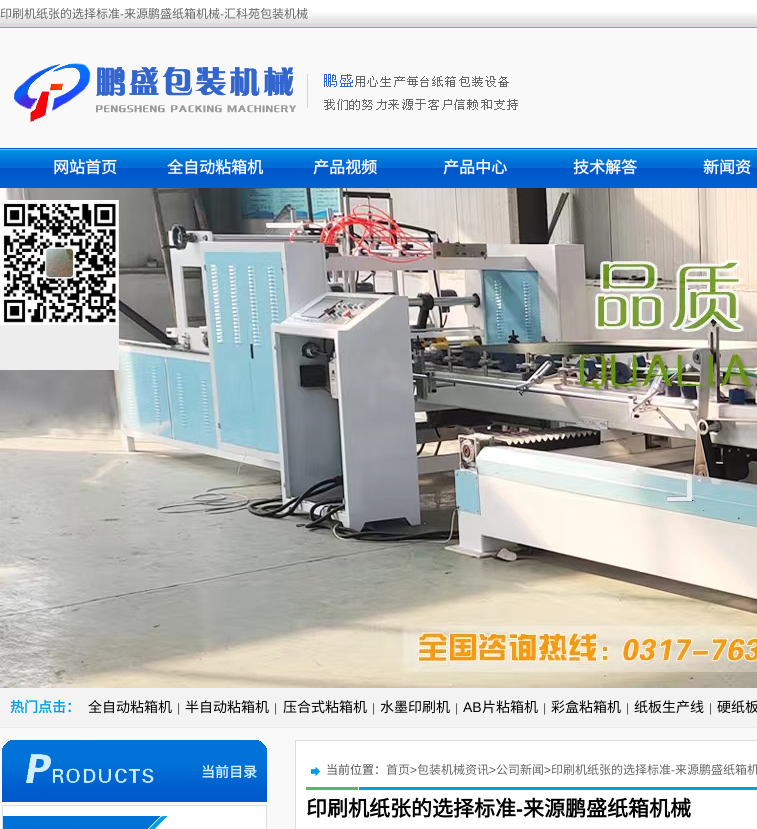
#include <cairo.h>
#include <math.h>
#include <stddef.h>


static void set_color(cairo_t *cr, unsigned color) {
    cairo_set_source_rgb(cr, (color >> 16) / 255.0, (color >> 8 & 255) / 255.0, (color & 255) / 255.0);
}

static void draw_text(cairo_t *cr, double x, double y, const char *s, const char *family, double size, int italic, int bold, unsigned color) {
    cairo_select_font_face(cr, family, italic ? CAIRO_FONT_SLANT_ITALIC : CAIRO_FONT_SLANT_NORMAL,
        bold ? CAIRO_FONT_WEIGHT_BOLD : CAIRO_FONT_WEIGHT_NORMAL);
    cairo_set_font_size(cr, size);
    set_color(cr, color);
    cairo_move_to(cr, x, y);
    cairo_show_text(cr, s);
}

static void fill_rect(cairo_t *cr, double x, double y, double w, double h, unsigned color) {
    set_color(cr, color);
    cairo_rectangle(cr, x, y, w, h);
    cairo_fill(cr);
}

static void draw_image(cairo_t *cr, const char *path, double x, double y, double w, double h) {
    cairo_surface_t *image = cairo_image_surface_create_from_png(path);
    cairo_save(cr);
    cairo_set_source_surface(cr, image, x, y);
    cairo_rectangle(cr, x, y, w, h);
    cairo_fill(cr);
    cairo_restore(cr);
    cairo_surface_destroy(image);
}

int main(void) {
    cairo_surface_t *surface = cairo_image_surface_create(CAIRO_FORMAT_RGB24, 757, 829);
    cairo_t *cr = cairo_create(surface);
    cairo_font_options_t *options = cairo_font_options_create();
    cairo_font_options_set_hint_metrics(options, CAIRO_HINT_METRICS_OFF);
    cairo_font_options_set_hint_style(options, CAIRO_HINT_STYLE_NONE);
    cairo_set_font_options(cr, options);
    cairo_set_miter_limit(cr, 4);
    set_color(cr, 0xF9F9F9);
    cairo_paint(cr);
    draw_image(cr, "assets/img1.png", 0, 0, 757, 28);
    draw_text(cr, 0, 18, "印刷机纸张的选择标准", "Noto Sans CJK SC", 12, 0, 0, 0x676767);
    draw_text(cr, 120, 18, "-", "Liberation Sans", 12, 0, 0, 0x676767);
    draw_text(cr, 124, 18, "来源鹏盛纸箱机械", "Noto Sans CJK SC", 12, 0, 0, 0x676767);
    draw_text(cr, 220, 18, "-", "Liberation Sans", 12, 0, 0, 0x676767);
    draw_text(cr, 224, 18, "汇科苑包装机械", "Noto Sans CJK SC", 12, 0, 0, 0x676767);
    draw_image(cr, "assets/img2.png", 14, 63, 504, 59);
    draw_image(cr, "assets/img3.png", 0, 148, 757, 40);
    draw_text(cr, 53, 173, "网站首页", "Noto Sans CJK SC", 16, 0, 1, 0xF3F3F3);
    draw_text(cr, 167, 173, "全自动粘箱机", "Noto Sans CJK SC", 16, 0, 1, 0xF3F3F3);
    draw_text(cr, 313, 173, "产品视频", "Noto Sans CJK SC", 16, 0, 1, 0xF3F3F3);
    draw_text(cr, 443, 173, "产品中心", "Noto Sans CJK SC", 16, 0, 1, 0xF3F3F3);
    draw_text(cr, 573, 173, "技术解答", "Noto Sans CJK SC", 16, 0, 1, 0xF3F3F3);
    draw_text(cr, 703, 173, "新闻资", "Noto Sans CJK SC", 16, 0, 1, 0xF3F3F3);
    draw_image(cr, "assets/img4.png", 0, 188, 757, 500);
    draw_image(cr, "assets/img5.png", 0, 200, 119, 125);
    fill_rect(cr, 0, 325, 119, 45, 0xEDEDED);
    fill_rect(cr, 0, 688, 757, 39, 0xF3F3F3);
    fill_rect(cr, 0, 727, 757, 1, 0xE9E9E9);
    draw_text(cr, 10, 712, "热门点击：", "Noto Sans CJK SC", 14, 0, 1, 0x019FE8);
    draw_text(cr, 88, 712, "全自动粘箱机", "Noto Sans CJK SC", 14, 0, 0, 0x000000);
    draw_text(cr, 177, 712, "|", "Liberation Sans", 12, 0, 0, 0x555555);
    draw_text(cr, 185, 712, "半自动粘箱机", "Noto Sans CJK SC", 14, 0, 0, 0x000000);
    draw_text(cr, 274, 712, "|", "Liberation Sans", 12, 0, 0, 0x555555);
    draw_text(cr, 283, 712, "压合式粘箱机", "Noto Sans CJK SC", 14, 0, 0, 0x000000);
    draw_text(cr, 372, 712, "|", "Liberation Sans", 12, 0, 0, 0x555555);
    draw_text(cr, 380, 712, "水墨印刷机", "Noto Sans CJK SC", 14, 0, 0, 0x000000);
    draw_text(cr, 455, 712, "|", "Liberation Sans", 12, 0, 0, 0x555555);
    draw_text(cr, 463, 712, "AB", "Liberation Sans", 14, 0, 0, 0x000000);
    draw_text(cr, 482, 712, "片粘箱机", "Noto Sans CJK SC", 14, 0, 0, 0x000000);
    draw_text(cr, 543, 712, "|", "Liberation Sans", 12, 0, 0, 0x555555);
    draw_text(cr, 551, 712, "彩盒粘箱机", "Noto Sans CJK SC", 14, 0, 0, 0x000000);
    draw_text(cr, 626, 712, "|", "Liberation Sans", 12, 0, 0, 0x555555);
    draw_text(cr, 634, 712, "纸板生产线", "Noto Sans CJK SC", 14, 0, 0, 0x000000);
    draw_text(cr, 709, 712, "|", "Liberation Sans", 12, 0, 0, 0x555555);
    draw_text(cr, 717, 712, "硬纸板", "Noto Sans CJK SC", 14, 0, 0, 0x000000);
    draw_image(cr, "assets/img6.png", 2, 740, 265, 62);
    draw_text(cr, 201, 777, "当前目录", "Noto Sans CJK SC", 14, 0, 1, 0xD1EEFB);
    set_color(cr, 0xFFFFFF);
    cairo_rectangle(cr, 2.5, 805.5, 264, 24);
    cairo_fill_preserve(cr);
    set_color(cr, 0xDEDEDE);
    cairo_set_line_width(cr, 1);
    cairo_stroke(cr);
    draw_image(cr, "assets/img7.png", 3, 816, 165, 13);
    set_color(cr, 0xFFFFFF);
    cairo_rectangle(cr, 295.5, 740.5, 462, 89);
    cairo_fill_preserve(cr);
    set_color(cr, 0xDEDEDE);
    cairo_stroke(cr);
    draw_image(cr, "assets/img8.png", 306, 767, 451, 23);
    draw_text(cr, 326, 774, "当前位置：", "Noto Sans CJK SC", 12, 0, 0, 0x555555);
    draw_text(cr, 386, 774, "首页", "Noto Sans CJK SC", 12, 0, 0, 0x676767);
    draw_text(cr, 410, 774, ">", "Liberation Sans", 12, 0, 0, 0x555555);
    draw_text(cr, 417, 774, "包装机械资讯", "Noto Sans CJK SC", 12, 0, 0, 0x676767);
    draw_text(cr, 489, 774, ">", "Liberation Sans", 12, 0, 0, 0x555555);
    draw_text(cr, 496, 774, "公司新闻", "Noto Sans CJK SC", 12, 0, 0, 0x676767);
    draw_text(cr, 544, 774, ">", "Liberation Sans", 12, 0, 0, 0x555555);
    draw_text(cr, 551, 774, "印刷机纸张的选择标准", "Noto Sans CJK SC", 12, 0, 0, 0x676767);
    draw_text(cr, 671, 774, "-", "Liberation Sans", 12, 0, 0, 0x676767);
    draw_text(cr, 675, 774, "来源鹏盛纸箱机", "Noto Sans CJK SC", 12, 0, 0, 0x676767);
    draw_text(cr, 306, 816, "印刷机纸张的选择标准", "Noto Sans CJK SC", 21, 0, 1, 0x000000);
    draw_text(cr, 516, 816, "-", "Liberation Sans", 21, 0, 1, 0x000000);
    draw_text(cr, 523, 816, "来源鹏盛纸箱机械", "Noto Sans CJK SC", 21, 0, 1, 0x000000);
    cairo_surface_write_to_png(surface, "output.png");
    cairo_font_options_destroy(options);
    cairo_destroy(cr);
    cairo_surface_destroy(surface);
    return 0;
}
